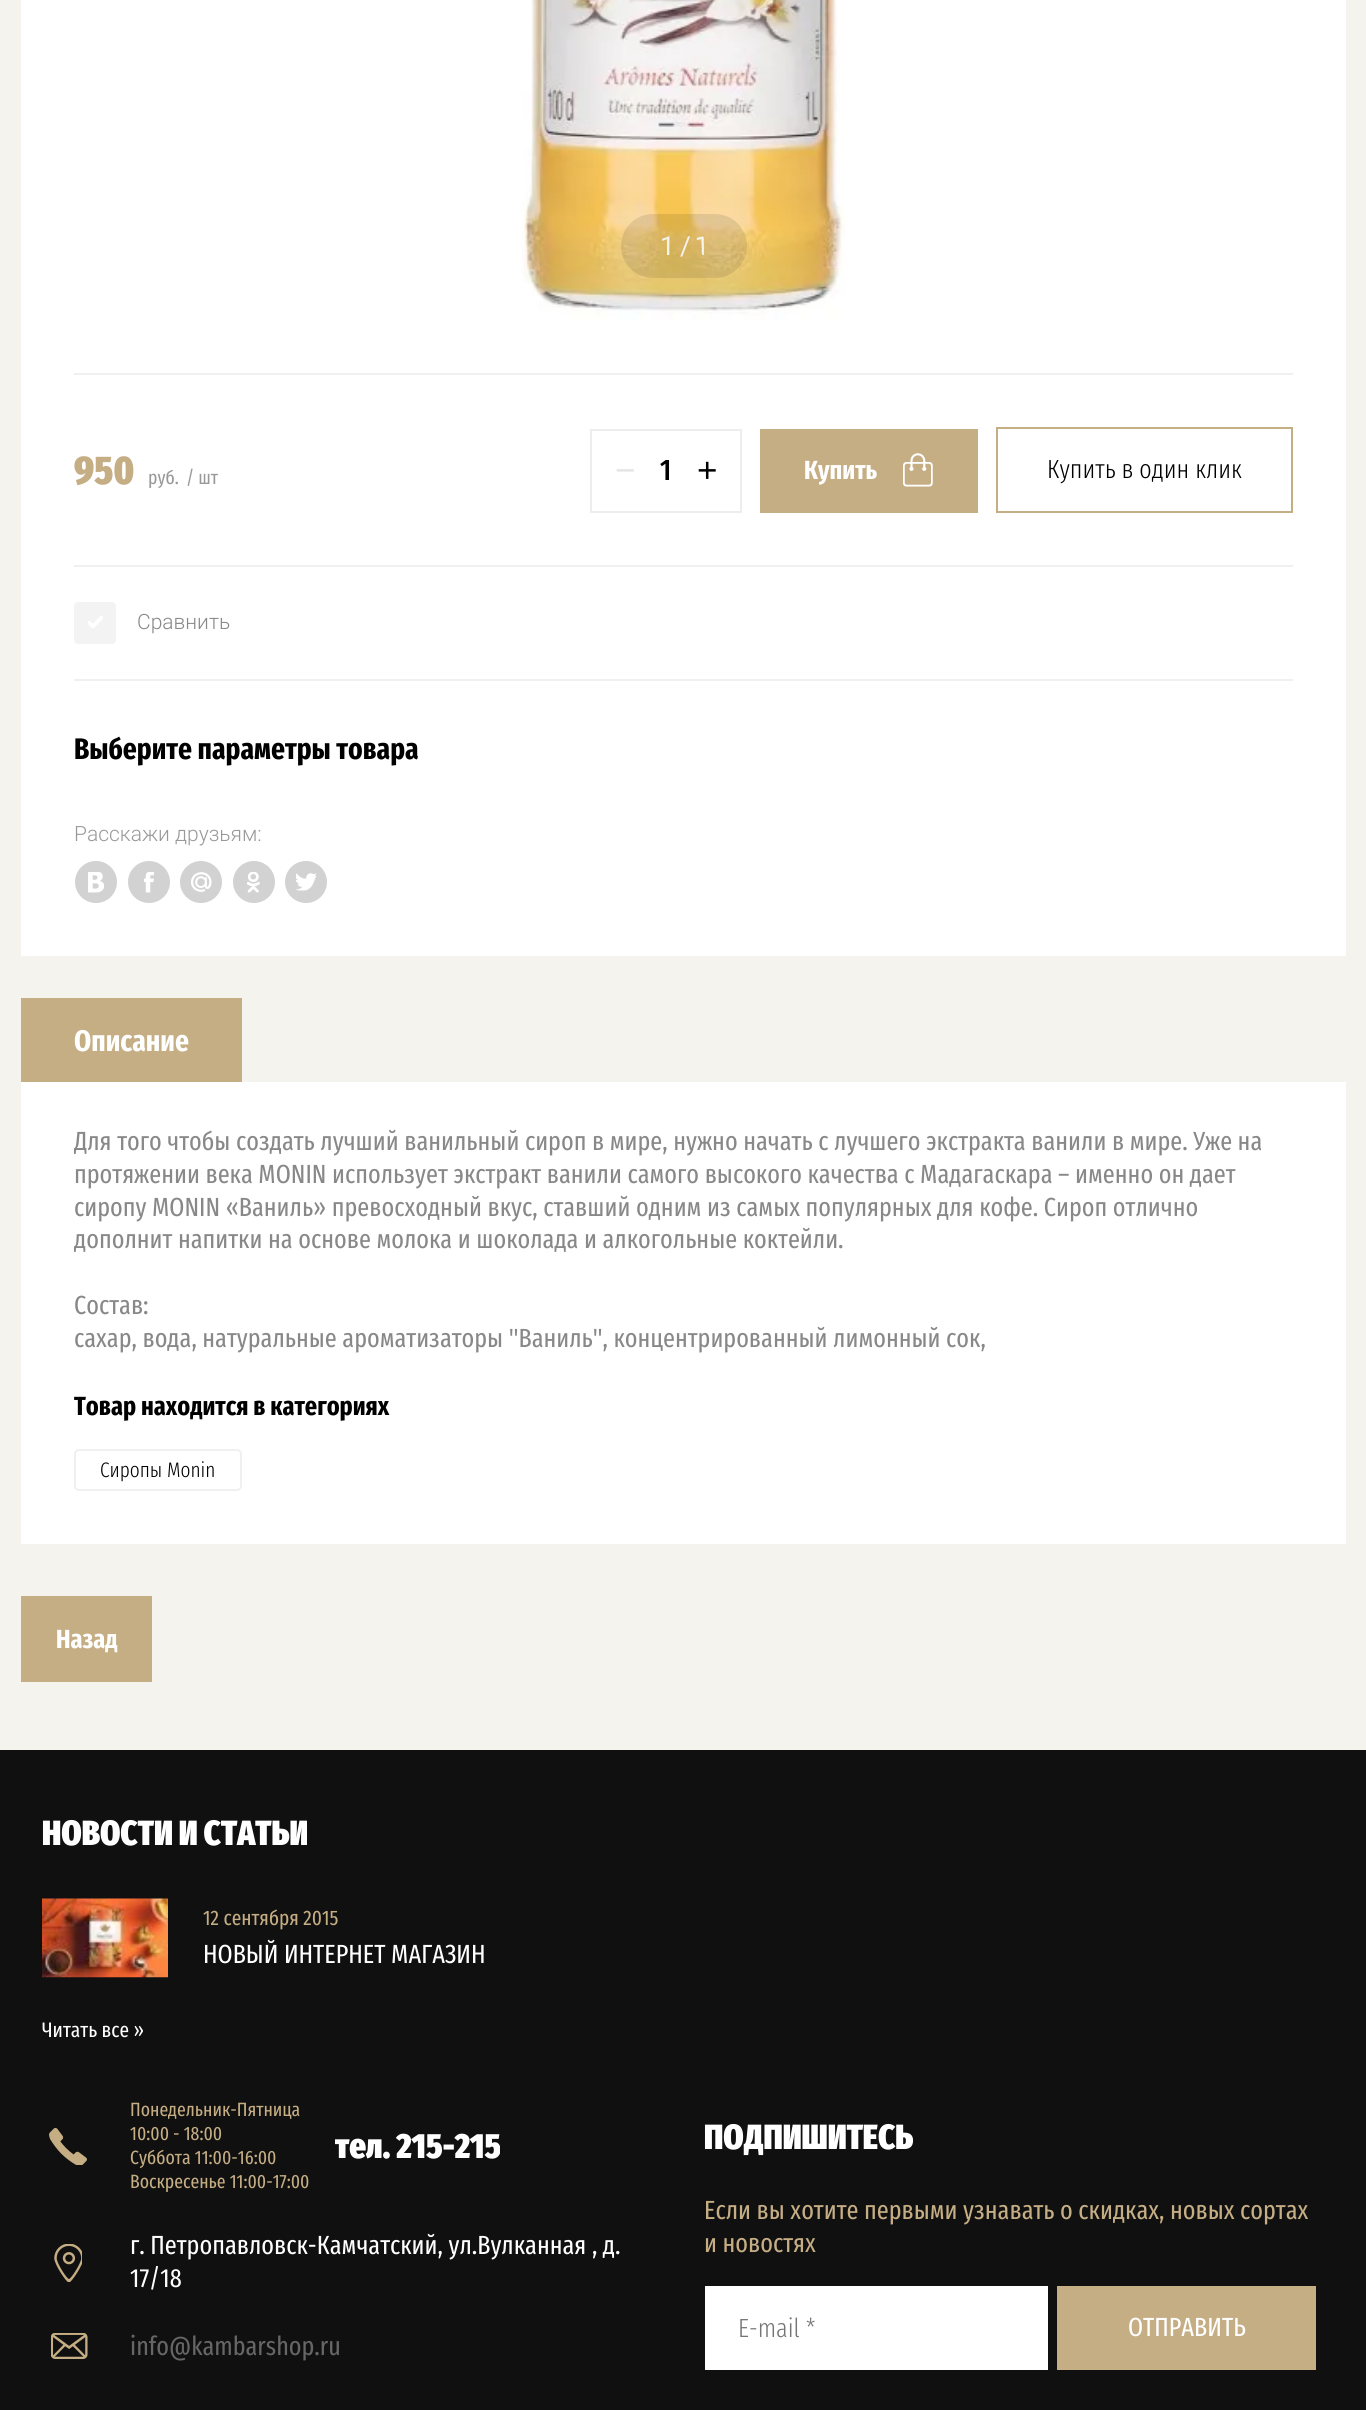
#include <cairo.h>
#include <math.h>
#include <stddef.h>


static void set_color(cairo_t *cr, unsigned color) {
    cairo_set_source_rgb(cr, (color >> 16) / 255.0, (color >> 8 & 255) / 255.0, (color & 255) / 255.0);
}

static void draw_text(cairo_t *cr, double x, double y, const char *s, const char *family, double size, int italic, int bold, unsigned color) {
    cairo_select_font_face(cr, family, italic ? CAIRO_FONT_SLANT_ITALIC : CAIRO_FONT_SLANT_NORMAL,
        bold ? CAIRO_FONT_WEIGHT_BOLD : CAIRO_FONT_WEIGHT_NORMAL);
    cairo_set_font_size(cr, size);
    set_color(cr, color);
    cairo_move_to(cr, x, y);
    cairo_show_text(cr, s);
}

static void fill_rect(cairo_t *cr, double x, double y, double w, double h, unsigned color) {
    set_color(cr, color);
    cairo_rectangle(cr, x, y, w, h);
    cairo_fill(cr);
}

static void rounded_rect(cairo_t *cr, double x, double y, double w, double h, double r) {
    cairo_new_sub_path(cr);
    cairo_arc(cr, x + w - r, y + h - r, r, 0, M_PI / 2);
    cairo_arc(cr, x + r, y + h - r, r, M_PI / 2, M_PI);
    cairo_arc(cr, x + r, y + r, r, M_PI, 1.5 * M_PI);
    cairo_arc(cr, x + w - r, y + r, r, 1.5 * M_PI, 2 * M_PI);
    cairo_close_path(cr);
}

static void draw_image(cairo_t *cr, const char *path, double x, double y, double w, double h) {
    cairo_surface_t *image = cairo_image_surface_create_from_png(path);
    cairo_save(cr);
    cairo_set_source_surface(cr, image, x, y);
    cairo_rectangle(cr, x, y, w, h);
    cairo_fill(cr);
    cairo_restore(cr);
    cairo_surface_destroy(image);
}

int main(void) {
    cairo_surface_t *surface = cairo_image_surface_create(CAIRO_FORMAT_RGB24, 1366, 2410);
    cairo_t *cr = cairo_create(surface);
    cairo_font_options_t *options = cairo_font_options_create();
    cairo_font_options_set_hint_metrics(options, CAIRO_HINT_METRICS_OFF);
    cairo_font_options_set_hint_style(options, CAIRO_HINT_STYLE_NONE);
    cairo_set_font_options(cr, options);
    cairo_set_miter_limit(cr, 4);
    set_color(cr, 0xF4F3ED);
    cairo_paint(cr);
    fill_rect(cr, 21, 0, 1325, 956, 0xFFFFFF);
    draw_image(cr, "assets/img1.png", 521, 0, 325, 320);
    cairo_set_source_rgba(cr, 0, 0, 0, 0.1);
    rounded_rect(cr, 621, 214, 126, 64, 32);
    cairo_fill(cr);
    draw_text(cr, 660, 255, "1", "Roboto", 26.25, 0, 0, 0xF4F3ED);
    draw_text(cr, 680, 255, "/", "Roboto", 26.25, 0, 0, 0xF4F3ED);
    draw_text(cr, 696, 255, "1", "Pangolin", 26.25, 0, 0, 0xF4F3ED);
    fill_rect(cr, 74, 373, 1219, 2, 0xF0F0F0);
    fill_rect(cr, 74, 565, 1219, 2, 0xF0F0F0);
    draw_text(cr, 74, 484, "950", "Fira Sans Extra Condensed Black", 40, 0, 0, 0xC5AD84);
    draw_text(cr, 148, 484, "руб.", "Fira Sans Extra Condensed", 19.25, 0, 0, 0x999999);
    draw_text(cr, 186, 484, "/ шт", "Fira Sans Extra Condensed", 19.25, 0, 0, 0x999999);
    cairo_rectangle(cr, 591, 430, 150, 82);
    set_color(cr, 0xEDEDED);
    cairo_stroke(cr);
    draw_text(cr, 615, 482, "−", "Liberation Sans", 35, 0, 0, 0xE5E5E5);
    draw_text(cr, 660, 480, "1", "Fira Sans Extra Condensed Medium", 29.75, 0, 0, 0x000000);
    draw_text(cr, 697, 482, "+", "Liberation Sans", 35, 0, 0, 0x000000);
    fill_rect(cr, 760, 429, 218, 84, 0xC5AD84);
    draw_text(cr, 804, 479, "Купить", "Fira Sans Extra Condensed", 26.25, 0, 1, 0xFFFFFF);
    draw_image(cr, "assets/img2.png", 903, 453, 30, 34);
    cairo_rectangle(cr, 997, 428, 295, 84);
    set_color(cr, 0xC5AD84);
    cairo_stroke(cr);
    draw_text(cr, 1047, 478, "Купить в один клик", "Fira Sans Extra Condensed Light", 26.25, 0, 0, 0x000000);
    fill_rect(cr, 74, 679, 1219, 2, 0xF0F0F0);
    set_color(cr, 0xF3F3F3);
    rounded_rect(cr, 74, 602, 42, 42, 4);
    cairo_fill(cr);
    draw_image(cr, "assets/img3.png", 88, 616, 15, 12);
    draw_text(cr, 137, 629, "Сравнить", "Roboto Light", 21, 0, 0, 0x888888);
    draw_text(cr, 74, 759, "Выберите параметры товара", "Fira Sans Extra Condensed", 29.75, 0, 1, 0x000000);
    draw_text(cr, 74, 841, "Расскажи друзьям:", "Roboto Light", 21, 0, 0, 0x999999);
    set_color(cr, 0xD2D2D2);
    cairo_new_path(cr);
    cairo_arc(cr, 96, 882, 21, 0, 2 * M_PI);
    cairo_fill(cr);
    draw_image(cr, "assets/img4.png", 88, 872, 16, 21);
    cairo_arc(cr, 149, 882, 21, 0, 2 * M_PI);
    cairo_fill(cr);
    draw_image(cr, "assets/img5.png", 144, 872, 10, 21);
    cairo_arc(cr, 201, 882, 21, 0, 2 * M_PI);
    cairo_fill(cr);
    draw_image(cr, "assets/img6.png", 191, 872, 21, 20);
    cairo_arc(cr, 254, 882, 21, 0, 2 * M_PI);
    cairo_fill(cr);
    draw_image(cr, "assets/img7.png", 247, 872, 13, 21);
    cairo_arc(cr, 306, 882, 21, 0, 2 * M_PI);
    cairo_fill(cr);
    draw_image(cr, "assets/img8.png", 296, 873, 21, 18);
    fill_rect(cr, 21, 998, 221, 84, 0xC5AD84);
    draw_text(cr, 74, 1051, "Описание", "Fira Sans Extra Condensed", 29.75, 0, 1, 0xFFFFFF);
    fill_rect(cr, 21, 1082, 1325, 462, 0xFFFFFF);
    draw_text(cr, 74, 1150, "Для того чтобы создать лучший ванильный сироп в мире, нужно начать с лучшего экстракта ванили в мире. Уже на", "Fira Sans Extra Condensed", 26.25, 0, 0, 0x888888);
    draw_text(cr, 74, 1183, "протяжении века MONIN использует экстракт ванили самого высокого качества с Мадагаскара – именно он дает", "Fira Sans Extra Condensed", 26.25, 0, 0, 0x888888);
    draw_text(cr, 74, 1216, "сиропу MONIN «Ваниль» превосходный вкус, ставший одним из самых популярных для кофе. Сироп отлично", "Fira Sans Extra Condensed", 26.25, 0, 0, 0x888888);
    draw_text(cr, 74, 1248, "дополнит напитки на основе молока и шоколада и алкогольные коктейли.", "Fira Sans Extra Condensed", 26.25, 0, 0, 0x888888);
    draw_text(cr, 74, 1314, "Состав:", "Fira Sans Extra Condensed", 26.25, 0, 0, 0x888888);
    draw_text(cr, 74, 1347, "сахар, вода, натуральные ароматизаторы \"Ваниль\", концентрированный лимонный сок,", "Fira Sans Extra Condensed", 26.25, 0, 0, 0x888888);
    draw_text(cr, 74, 1415, "Товар находится в категориях", "Fira Sans Extra Condensed", 26.25, 0, 1, 0x000000);
    rounded_rect(cr, 75, 1450, 166, 40, 4);
    set_color(cr, 0xF0F0F0);
    cairo_stroke(cr);
    draw_text(cr, 100, 1477, "Сиропы Monin", "Fira Sans Extra Condensed Light", 21, 0, 0, 0x000000);
    fill_rect(cr, 21, 1596, 131, 86, 0xC5AD84);
    draw_text(cr, 56, 1648, "Назад", "Fira Sans Extra Condensed", 26.25, 0, 1, 0xFFFFFF);
    fill_rect(cr, 0, 1750, 1366, 660, 0x101010);
    draw_text(cr, 42, 1845, "НОВОСТИ И СТАТЬИ", "Fira Sans Extra Condensed Black", 35, 0, 0, 0xFFFFFF);
    draw_image(cr, "assets/img9.png", 42, 1898, 126, 80);
    draw_text(cr, 203, 1925, "12 сентября 2015", "Fira Sans Extra Condensed", 21, 0, 0, 0xC5AD84);
    draw_text(cr, 203, 1963, "НОВЫЙ ИНТЕРНЕТ МАГАЗИН", "Fira Sans Extra Condensed", 26.25, 0, 0, 0xFFFFFF);
    draw_text(cr, 42, 2037, "Читать все »", "Fira Sans Extra Condensed", 21, 0, 0, 0xFFFFFF);
    draw_image(cr, "assets/img10.png", 49, 2128, 38, 37);
    draw_text(cr, 130, 2116, "Понедельник-Пятница", "Fira Sans Extra Condensed", 19.25, 0, 0, 0xC5AD84);
    draw_text(cr, 130, 2140, "10:00 - 18:00", "Fira Sans Extra Condensed", 19.25, 0, 0, 0xC5AD84);
    draw_text(cr, 130, 2164, "Суббота 11:00-16:00", "Fira Sans Extra Condensed", 19.25, 0, 0, 0xC5AD84);
    draw_text(cr, 130, 2188, "Воскресенье 11:00-17:00", "Fira Sans Extra Condensed", 19.25, 0, 0, 0xC5AD84);
    draw_text(cr, 335, 2158, "тел. 215-215", "Fira Sans Extra Condensed Black", 35, 0, 0, 0xFFFFFF);
    draw_image(cr, "assets/img11.png", 54, 2244, 28, 38);
    draw_text(cr, 130, 2254, "г. Петропавловск-Камчатский, ул.Вулканная , д.", "Fira Sans Extra Condensed", 26.25, 0, 0, 0xFFFFFF);
    draw_text(cr, 130, 2287, "17/18", "Fira Sans Extra Condensed", 26.25, 0, 0, 0xFFFFFF);
    draw_image(cr, "assets/img12.png", 51, 2333, 37, 26);
    draw_text(cr, 130, 2355, "info@kambarshop.ru", "Fira Sans Extra Condensed", 26.25, 0, 0, 0x666666);
    draw_text(cr, 704, 2149, "ПОДПИШИТЕСЬ", "Fira Sans Extra Condensed Black", 35, 0, 0, 0xFFFFFF);
    draw_text(cr, 704, 2219, "Если вы хотите первыми узнавать о скидках, новых сортах", "Fira Sans Extra Condensed", 26.25, 0, 0, 0xC5AD84);
    draw_text(cr, 704, 2252, "и новостях", "Fira Sans Extra Condensed", 26.25, 0, 0, 0xC5AD84);
    fill_rect(cr, 705, 2286, 343, 84, 0xFFFFFF);
    draw_text(cr, 738, 2337, "E-mail *", "Fira Sans Extra Condensed Light", 26.25, 0, 0, 0x757575);
    fill_rect(cr, 1057, 2286, 259, 84, 0xC5AD84);
    draw_text(cr, 1128, 2336, "ОТПРАВИТЬ", "Fira Sans Extra Condensed", 26.25, 0, 0, 0xFFFFFF);
    cairo_surface_write_to_png(surface, "output.png");
    cairo_font_options_destroy(options);
    cairo_destroy(cr);
    cairo_surface_destroy(surface);
    return 0;
}
